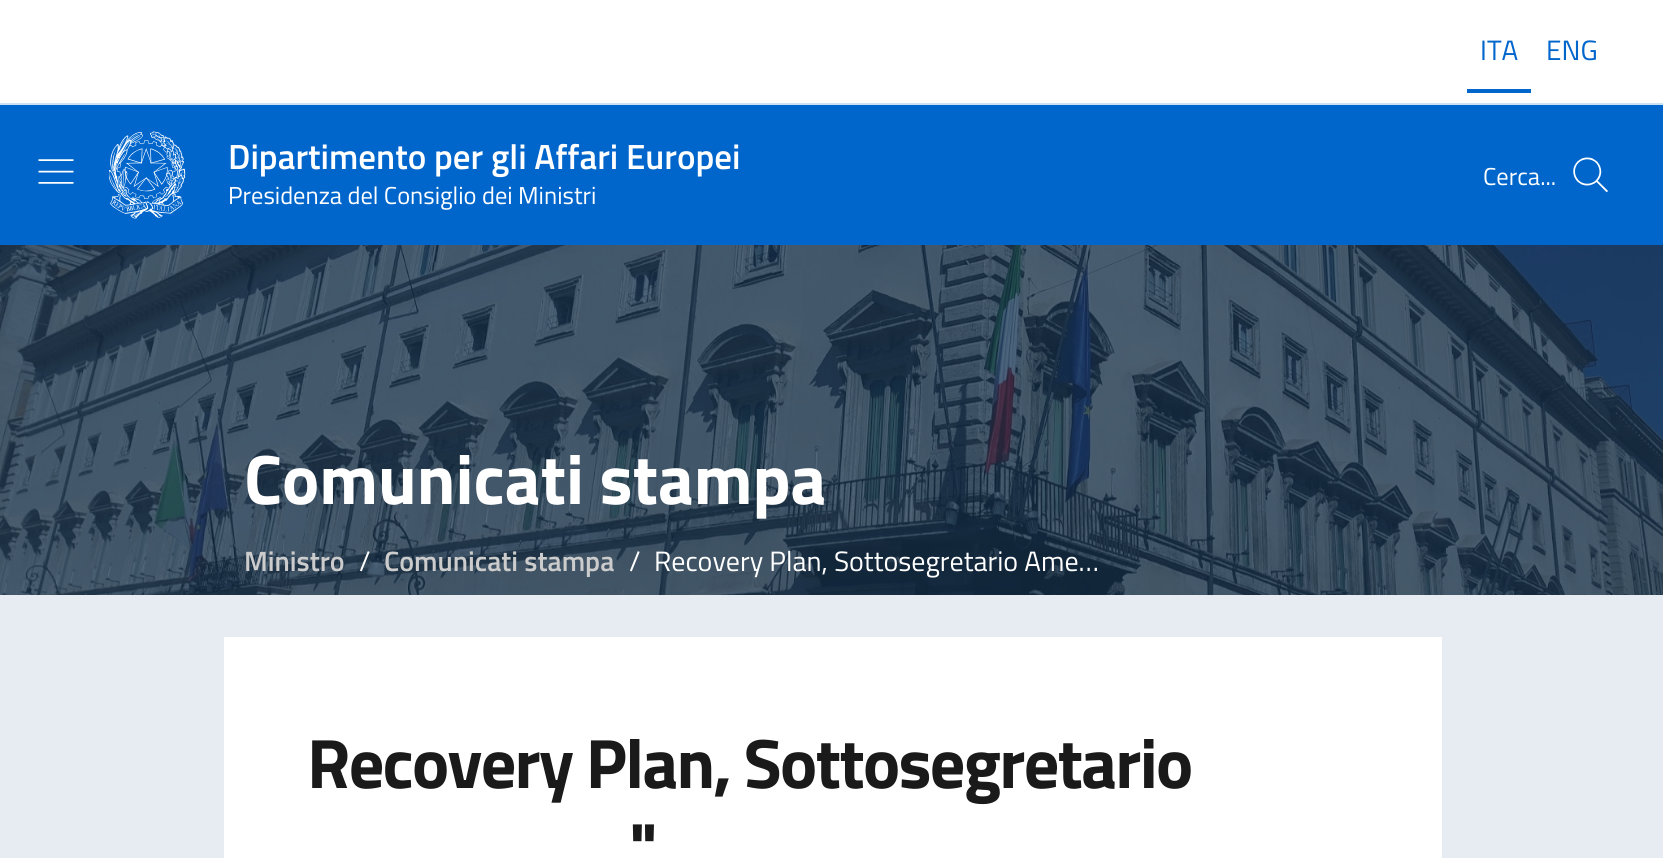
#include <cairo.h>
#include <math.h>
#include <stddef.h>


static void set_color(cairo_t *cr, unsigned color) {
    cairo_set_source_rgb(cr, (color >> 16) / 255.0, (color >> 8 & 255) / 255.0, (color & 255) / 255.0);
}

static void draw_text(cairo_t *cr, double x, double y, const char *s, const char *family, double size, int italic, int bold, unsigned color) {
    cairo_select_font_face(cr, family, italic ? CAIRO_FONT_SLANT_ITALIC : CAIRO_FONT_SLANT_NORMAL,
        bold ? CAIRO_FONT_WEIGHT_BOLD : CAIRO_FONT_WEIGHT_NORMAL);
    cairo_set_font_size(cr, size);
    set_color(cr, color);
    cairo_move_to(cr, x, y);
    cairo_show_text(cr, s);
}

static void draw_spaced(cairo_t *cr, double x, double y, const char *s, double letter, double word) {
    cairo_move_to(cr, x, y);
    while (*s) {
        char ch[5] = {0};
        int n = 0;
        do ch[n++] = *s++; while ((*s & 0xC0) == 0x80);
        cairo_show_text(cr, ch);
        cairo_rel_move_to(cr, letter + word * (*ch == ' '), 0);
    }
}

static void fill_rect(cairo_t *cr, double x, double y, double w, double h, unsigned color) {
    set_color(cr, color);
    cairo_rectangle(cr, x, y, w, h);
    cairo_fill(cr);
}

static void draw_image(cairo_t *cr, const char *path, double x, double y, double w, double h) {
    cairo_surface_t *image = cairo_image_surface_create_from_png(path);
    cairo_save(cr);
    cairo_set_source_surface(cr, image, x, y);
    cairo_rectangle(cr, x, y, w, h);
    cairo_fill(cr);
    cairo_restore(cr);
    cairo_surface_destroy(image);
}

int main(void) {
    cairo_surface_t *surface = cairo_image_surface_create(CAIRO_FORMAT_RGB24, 1663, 858);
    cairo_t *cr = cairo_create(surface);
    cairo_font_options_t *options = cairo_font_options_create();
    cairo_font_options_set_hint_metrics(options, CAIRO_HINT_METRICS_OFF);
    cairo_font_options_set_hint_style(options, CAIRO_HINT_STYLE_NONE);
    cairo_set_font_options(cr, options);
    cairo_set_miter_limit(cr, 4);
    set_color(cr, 0xFFFFFF);
    cairo_paint(cr);
    fill_rect(cr, 0, 103, 1663, 2, 0xCCE0F5);
    fill_rect(cr, 1467, 89, 64, 4, 0x0066CC);
    draw_text(cr, 1480, 60, "ITA", "Titillium Web", 28, 0, 0, 0x0066CC);
    draw_text(cr, 1546, 60, "ENG", "Titillium Web", 28, 0, 0, 0x0066CC);
    fill_rect(cr, 0, 105, 1663, 140, 0x0066CC);
    draw_image(cr, "assets/img1.png", 38, 159, 36, 25);
    draw_image(cr, "assets/img2.png", 109, 131, 77, 88);
    draw_text(cr, 228, 169, "Dipartimento per gli Affari Europei", "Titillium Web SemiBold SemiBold", 35, 0, 0, 0xFFFFFF);
    draw_text(cr, 228, 204, "Presidenza del Consiglio dei Ministri", "Titillium Web", 24.5, 0, 0, 0xFFFFFF);
    draw_text(cr, 1483, 185, "Cerca...", "Titillium Web", 24.5, 0, 0, 0xFFFFFF);
    draw_image(cr, "assets/img3.png", 1573, 157, 35, 36);
    draw_image(cr, "assets/img4.png", 0, 245, 1663, 350);
    fill_rect(cr, 0, 595, 1663, 263, 0xE6ECF2);
    draw_text(cr, 244, 504, "Comunicati stampa", "Titillium Web", 70, 0, 1, 0xFFFFFF);
    draw_text(cr, 244, 571, "Ministro", "Titillium Web SemiBold SemiBold", 28, 0, 0, 0xCCCCCC);
    draw_text(cr, 359, 571, "/", "Titillium Web", 28, 0, 0, 0xFFFFFF);
    draw_text(cr, 384, 571, "Comunicati stampa", "Titillium Web SemiBold SemiBold", 28, 0, 0, 0xCCCCCC);
    draw_text(cr, 629, 571, "/", "Titillium Web", 28, 0, 0, 0xFFFFFF);
    draw_text(cr, 654, 571, "Recovery Plan, Sottosegretario Ame…", "Titillium Web", 28, 0, 0, 0xFFFFFF);
    fill_rect(cr, 224, 637, 1218, 221, 0xFFFFFF);
    cairo_select_font_face(cr, "Titillium Web", CAIRO_FONT_SLANT_NORMAL, CAIRO_FONT_WEIGHT_BOLD);
    cairo_set_font_size(cr, 70);
    set_color(cr, 0x1A1A1A);
    draw_spaced(cr, 307, 788, "Recovery Plan, Sottosegretario", -1.75, 0);
    draw_spaced(cr, 629, 872, "\"", -1.75, 0);
    cairo_surface_write_to_png(surface, "output.png");
    cairo_font_options_destroy(options);
    cairo_destroy(cr);
    cairo_surface_destroy(surface);
    return 0;
}
